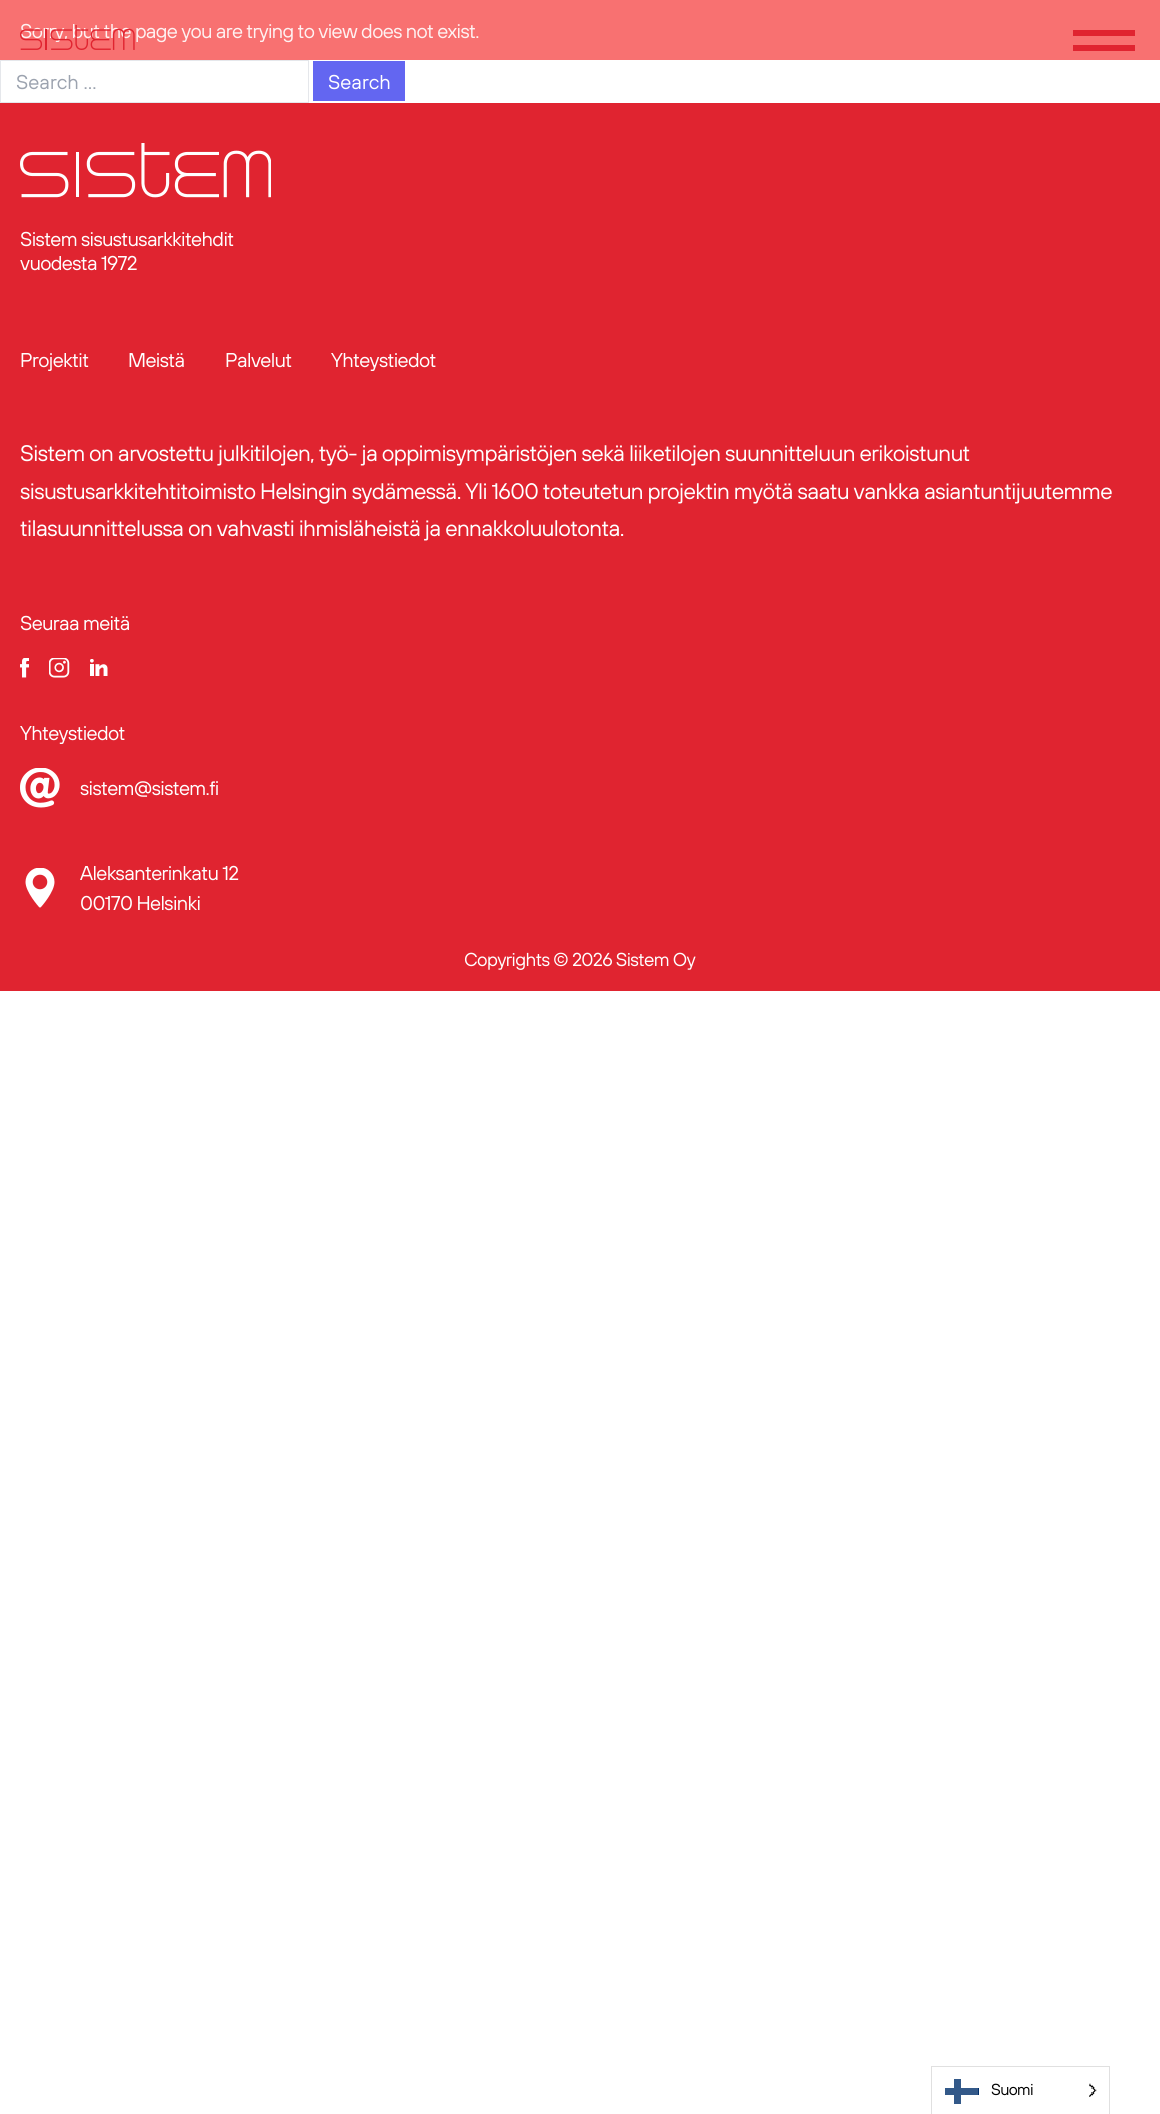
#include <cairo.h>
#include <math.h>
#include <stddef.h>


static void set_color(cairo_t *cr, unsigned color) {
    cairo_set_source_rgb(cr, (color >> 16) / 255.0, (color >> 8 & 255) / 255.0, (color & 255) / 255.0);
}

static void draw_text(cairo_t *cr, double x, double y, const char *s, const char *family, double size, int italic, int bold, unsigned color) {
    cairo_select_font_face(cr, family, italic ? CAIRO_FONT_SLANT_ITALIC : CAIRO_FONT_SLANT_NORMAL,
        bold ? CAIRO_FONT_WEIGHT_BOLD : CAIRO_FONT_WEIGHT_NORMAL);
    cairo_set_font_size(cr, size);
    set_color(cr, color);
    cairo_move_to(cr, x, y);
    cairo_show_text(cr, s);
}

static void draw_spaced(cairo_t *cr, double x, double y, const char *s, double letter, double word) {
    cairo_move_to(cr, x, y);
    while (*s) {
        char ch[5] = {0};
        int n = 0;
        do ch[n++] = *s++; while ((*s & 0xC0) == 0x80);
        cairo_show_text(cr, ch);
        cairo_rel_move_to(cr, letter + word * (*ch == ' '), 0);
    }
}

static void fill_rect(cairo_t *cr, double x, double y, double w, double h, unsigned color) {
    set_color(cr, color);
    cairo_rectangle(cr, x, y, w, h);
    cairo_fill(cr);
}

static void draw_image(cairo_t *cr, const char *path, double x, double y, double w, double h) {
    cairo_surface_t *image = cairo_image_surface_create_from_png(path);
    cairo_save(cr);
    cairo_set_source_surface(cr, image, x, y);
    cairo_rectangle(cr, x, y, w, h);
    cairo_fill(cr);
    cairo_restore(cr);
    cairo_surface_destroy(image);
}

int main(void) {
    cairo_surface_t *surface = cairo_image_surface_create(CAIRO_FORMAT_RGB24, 1160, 2114);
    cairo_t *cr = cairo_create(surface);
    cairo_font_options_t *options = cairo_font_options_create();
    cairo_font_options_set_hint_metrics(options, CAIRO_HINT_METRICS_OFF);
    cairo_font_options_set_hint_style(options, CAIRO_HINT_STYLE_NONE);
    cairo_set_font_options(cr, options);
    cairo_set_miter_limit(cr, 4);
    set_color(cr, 0xFFFFFF);
    cairo_paint(cr);
    fill_rect(cr, 0, 0, 1160, 60, 0xF87171);
    cairo_select_font_face(cr, "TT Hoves", CAIRO_FONT_SLANT_NORMAL, CAIRO_FONT_WEIGHT_NORMAL);
    cairo_set_font_size(cr, 20);
    set_color(cr, 0xFEF2F2);
    draw_spaced(cr, 20, 38, "Sorry, but the page you are trying to view does not exist.", -0.62, 0);
    cairo_rectangle(cr, 0.5, 60.5, 308, 42);
    set_color(cr, 0xE5E7EB);
    cairo_set_line_width(cr, 1);
    cairo_stroke(cr);
    draw_text(cr, 16, 89, "Search …", "TT Hoves", 20, 0, 0, 0x9CA3AF);
    fill_rect(cr, 313, 61, 92, 40, 0x6366F1);
    draw_text(cr, 328, 89, "Search", "TT Hoves", 20, 0, 0, 0xFFFFFF);
    draw_image(cr, "assets/img1.png", 20, 25, 115, 25);
    fill_rect(cr, 1073, 30, 62, 6, 0xE02430);
    fill_rect(cr, 1073, 45, 62, 6, 0xE02430);
    fill_rect(cr, 0, 103, 1160, 888, 0xE02430);
    draw_image(cr, "assets/img2.png", 20, 143, 251, 55);
    set_color(cr, 0xFFFFFF);
    draw_spaced(cr, 20, 246, "Sistem sisustusarkkitehdit", -0.62, 0);
    draw_spaced(cr, 20, 270, "vuodesta 1972", -0.62, 0);
    draw_spaced(cr, 20, 367, "Projektit", -0.62, 0);
    draw_spaced(cr, 128, 367, "Meistä", -0.62, 0);
    draw_spaced(cr, 225, 367, "Palvelut", -0.62, 0);
    draw_spaced(cr, 331, 367, "Yhteystiedot", -0.62, 0);
    cairo_set_font_size(cr, 22.5);
    draw_spaced(cr, 20, 461, "Sistem on arvostettu julkitilojen, työ- ja oppimisympäristöjen sekä liiketilojen suunnitteluun erikoistunut", -0.62, 0);
    draw_spaced(cr, 20, 499, "sisustusarkkitehtitoimisto Helsingin sydämessä. Yli 1600 toteutetun projektin myötä saatu vankka asiantuntijuutemme", -0.62, 0);
    draw_spaced(cr, 20, 536, "tilasuunnittelussa on vahvasti ihmisläheistä ja ennakkoluulotonta.", -0.62, 0);
    cairo_set_font_size(cr, 20);
    draw_spaced(cr, 20, 630, "Seuraa meitä", -0.62, 0);
    draw_image(cr, "assets/img3.png", 20, 658, 9, 20);
    draw_image(cr, "assets/img4.png", 49, 658, 21, 20);
    draw_image(cr, "assets/img5.png", 90, 659, 18, 17);
    draw_spaced(cr, 20, 740, "Yhteystiedot", -0.62, 0);
    draw_image(cr, "assets/img6.png", 20, 768, 40, 40);
    draw_spaced(cr, 80, 795, "sistem@sistem.fi", -0.62, 0);
    draw_image(cr, "assets/img7.png", 25, 868, 30, 40);
    draw_spaced(cr, 80, 880, "Aleksanterinkatu 12", -0.62, 0);
    draw_spaced(cr, 80, 910, "00170 Helsinki", -0.62, 0);
    cairo_set_font_size(cr, 18.75);
    draw_spaced(cr, 464, 966, "Copyrights © 2026 Sistem Oy", -0.62, 0);
    cairo_rectangle(cr, 931.5, 2066.5, 178, 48);
    set_color(cr, 0xE0E0E0);
    cairo_stroke(cr);
    fill_rect(cr, 978, 2088, 1, 7, 0x002F6C);
    fill_rect(cr, 945, 2088, 33, 7, 0x335989);
    fill_rect(cr, 954, 2079, 7, 25, 0x335989);
    cairo_set_font_size(cr, 16);
    set_color(cr, 0x000000);
    draw_spaced(cr, 991, 2095, "Suomi", -0.62, 0);
    draw_image(cr, "assets/img8.png", 1089, 2083, 8, 14);
    cairo_surface_write_to_png(surface, "output.png");
    cairo_font_options_destroy(options);
    cairo_destroy(cr);
    cairo_surface_destroy(surface);
    return 0;
}
